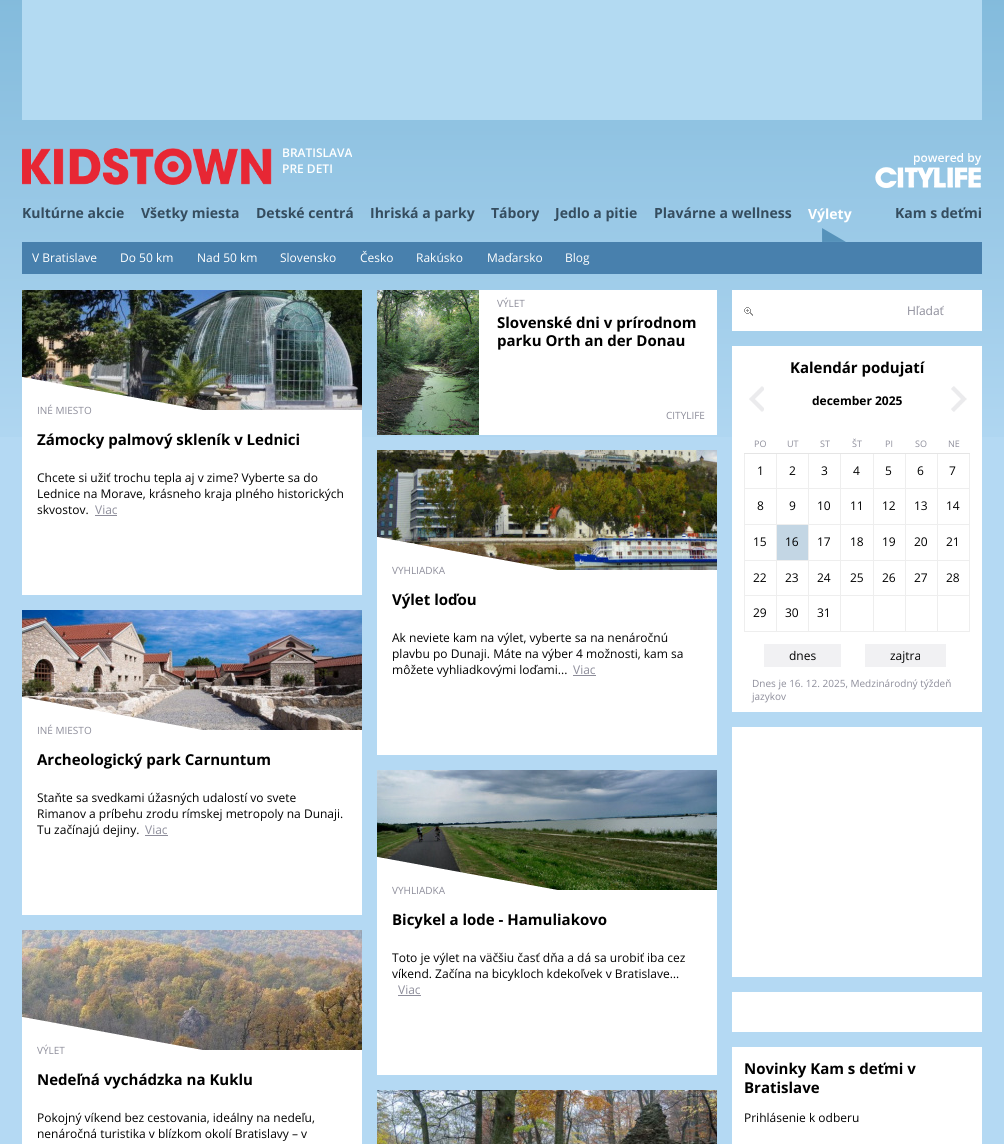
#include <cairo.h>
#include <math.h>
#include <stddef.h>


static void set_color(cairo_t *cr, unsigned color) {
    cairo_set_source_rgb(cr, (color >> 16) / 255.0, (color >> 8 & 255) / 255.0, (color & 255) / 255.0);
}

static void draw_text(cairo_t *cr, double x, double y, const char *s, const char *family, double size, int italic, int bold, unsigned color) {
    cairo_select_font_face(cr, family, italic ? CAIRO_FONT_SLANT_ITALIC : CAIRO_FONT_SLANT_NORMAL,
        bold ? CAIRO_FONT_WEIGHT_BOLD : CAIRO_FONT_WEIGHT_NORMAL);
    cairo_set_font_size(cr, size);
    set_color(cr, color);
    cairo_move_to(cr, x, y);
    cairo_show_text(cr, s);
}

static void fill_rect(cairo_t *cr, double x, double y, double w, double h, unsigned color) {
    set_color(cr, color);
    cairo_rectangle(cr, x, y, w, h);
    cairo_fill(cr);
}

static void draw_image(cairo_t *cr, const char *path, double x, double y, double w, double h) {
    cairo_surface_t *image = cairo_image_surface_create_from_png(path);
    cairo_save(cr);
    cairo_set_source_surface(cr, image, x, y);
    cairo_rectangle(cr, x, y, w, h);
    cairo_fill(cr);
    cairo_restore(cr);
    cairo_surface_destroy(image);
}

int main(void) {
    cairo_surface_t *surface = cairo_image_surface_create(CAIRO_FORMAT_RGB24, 1004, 1144);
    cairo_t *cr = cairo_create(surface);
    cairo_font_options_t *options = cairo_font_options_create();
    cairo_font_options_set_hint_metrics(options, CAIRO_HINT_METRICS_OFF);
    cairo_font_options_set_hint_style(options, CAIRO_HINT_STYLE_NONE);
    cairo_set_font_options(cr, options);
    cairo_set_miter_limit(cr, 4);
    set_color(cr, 0xB4D9F3);
    cairo_paint(cr);
    draw_image(cr, "assets/img1.png", 0, 0, 1004, 437);
    fill_rect(cr, 22, 0, 960, 120, 0xB3DAF2);
    draw_image(cr, "assets/img2.png", 22, 148, 250, 37);
    draw_text(cr, 282, 157, "BRATISLAVA", "Open Sans SemiBold", 12, 0, 0, 0xFFFFFF);
    draw_text(cr, 282, 173, "PRE DETI", "Open Sans SemiBold", 12, 0, 0, 0xFFFFFF);
    draw_image(cr, "assets/img3.png", 875, 153, 107, 35);
    draw_text(cr, 22, 218, "Kultúrne akcie", "Open Sans", 14, 0, 1, 0x354D5F);
    draw_text(cr, 141, 218, "Všetky miesta", "Open Sans", 14, 0, 1, 0x354D5F);
    draw_text(cr, 256, 218, "Detské centrá", "Open Sans", 14, 0, 1, 0x354D5F);
    draw_text(cr, 370, 218, "Ihriská a parky", "Open Sans", 14, 0, 1, 0x354D5F);
    draw_text(cr, 491, 218, "Tábory", "Open Sans", 14, 0, 1, 0x354D5F);
    draw_text(cr, 555, 218, "Jedlo a pitie", "Open Sans", 14, 0, 1, 0x354D5F);
    draw_text(cr, 654, 218, "Plavárne a wellness", "Open Sans", 14, 0, 1, 0x354D5F);
    draw_text(cr, 808, 219, "Výlety", "Open Sans", 14, 0, 1, 0xFFFFFF);
    draw_image(cr, "assets/img4.png", 822, 228, 24, 14);
    draw_text(cr, 895, 218, "Kam s deťmi", "Open Sans", 14, 0, 1, 0x354D5F);
    fill_rect(cr, 22, 242, 960, 32, 0x4880AD);
    draw_text(cr, 32, 262, "V Bratislave", "Open Sans", 12, 0, 0, 0xFFFFFF);
    draw_text(cr, 120, 262, "Do 50 km", "Open Sans", 12, 0, 0, 0xFFFFFF);
    draw_text(cr, 197, 262, "Nad 50 km", "Open Sans", 12, 0, 0, 0xFFFFFF);
    draw_text(cr, 280, 262, "Slovensko", "Open Sans", 12, 0, 0, 0xFFFFFF);
    draw_text(cr, 360, 262, "Česko", "Open Sans", 12, 0, 0, 0xFFFFFF);
    draw_text(cr, 416, 262, "Rakúsko", "Open Sans", 12, 0, 0, 0xFFFFFF);
    draw_text(cr, 487, 262, "Maďarsko", "Open Sans", 12, 0, 0, 0xFFFFFF);
    draw_text(cr, 565, 262, "Blog", "Open Sans", 12, 0, 0, 0xFFFFFF);
    fill_rect(cr, 479, 290, 238, 145, 0xFFFFFF);
    draw_image(cr, "assets/img5.png", 377, 290, 102, 145);
    draw_text(cr, 497, 307, "VÝLET", "Open Sans", 10, 0, 0, 0x8D8D9A);
    draw_text(cr, 497, 328, "Slovenské dni v prírodnom", "Open Sans", 15, 0, 1, 0x000000);
    draw_text(cr, 497, 346, "parku Orth an der Donau", "Open Sans", 15, 0, 1, 0x000000);
    draw_text(cr, 666, 419, "CITYLIFE", "Open Sans", 10, 0, 0, 0x8D8D9A);
    fill_rect(cr, 22, 410, 340, 185, 0xFFFFFF);
    draw_image(cr, "assets/img6.png", 22, 290, 340, 120);
    draw_image(cr, "assets/img7.png", 22, 377, 180, 33);
    draw_text(cr, 37, 414, "INÉ MIESTO", "Open Sans", 10, 0, 0, 0x8D8D9A);
    draw_text(cr, 37, 445, "Zámocky palmový skleník v Lednici", "Open Sans", 15, 0, 1, 0x000000);
    draw_text(cr, 37, 482, "Chcete si užiť trochu tepla aj v zime? Vyberte sa do", "Open Sans", 12, 0, 0, 0x000000);
    draw_text(cr, 37, 498, "Lednice na Morave, krásneho kraja plného historických", "Open Sans", 12, 0, 0, 0x000000);
    draw_text(cr, 37, 514, "skvostov.", "Open Sans", 12, 0, 0, 0x000000);
    draw_text(cr, 95, 514, "Viac", "Open Sans", 12, 0, 0, 0x8D8D9A);
    fill_rect(cr, 95, 515, 22, 1, 0x8D8D9A);
    fill_rect(cr, 377, 570, 340, 185, 0xFFFFFF);
    draw_image(cr, "assets/img8.png", 377, 450, 340, 120);
    draw_image(cr, "assets/img9.png", 377, 537, 180, 33);
    draw_text(cr, 392, 574, "VYHLIADKA", "Open Sans", 10, 0, 0, 0x8D8D9A);
    draw_text(cr, 392, 605, "Výlet loďou", "Open Sans", 15, 0, 1, 0x000000);
    draw_text(cr, 392, 642, "Ak neviete kam na výlet, vyberte sa na nenáročnú", "Open Sans", 12, 0, 0, 0x000000);
    draw_text(cr, 392, 658, "plavbu po Dunaji. Máte na výber 4 možnosti, kam sa", "Open Sans", 12, 0, 0, 0x000000);
    draw_text(cr, 392, 674, "môžete vyhliadkovými loďami...", "Open Sans", 12, 0, 0, 0x000000);
    draw_text(cr, 573, 674, "Viac", "Open Sans", 12, 0, 0, 0x8D8D9A);
    fill_rect(cr, 573, 675, 23, 1, 0x8D8D9A);
    fill_rect(cr, 22, 730, 340, 185, 0xFFFFFF);
    draw_image(cr, "assets/img10.png", 22, 610, 340, 120);
    draw_image(cr, "assets/img11.png", 22, 697, 180, 33);
    draw_text(cr, 37, 734, "INÉ MIESTO", "Open Sans", 10, 0, 0, 0x8D8D9A);
    draw_text(cr, 37, 765, "Archeologický park Carnuntum", "Open Sans", 15, 0, 1, 0x000000);
    draw_text(cr, 37, 802, "Staňte sa svedkami úžasných udalostí vo svete", "Open Sans", 12, 0, 0, 0x000000);
    draw_text(cr, 37, 818, "Rimanov a príbehu zrodu rímskej metropoly na Dunaji.", "Open Sans", 12, 0, 0, 0x000000);
    draw_text(cr, 37, 834, "Tu začínajú dejiny.", "Open Sans", 12, 0, 0, 0x000000);
    draw_text(cr, 145, 834, "Viac", "Open Sans", 12, 0, 0, 0x8D8D9A);
    fill_rect(cr, 145, 835, 23, 1, 0x8D8D9A);
    fill_rect(cr, 377, 890, 340, 185, 0xFFFFFF);
    draw_image(cr, "assets/img12.png", 377, 770, 340, 120);
    draw_image(cr, "assets/img13.png", 377, 857, 180, 33);
    draw_text(cr, 392, 894, "VYHLIADKA", "Open Sans", 10, 0, 0, 0x8D8D9A);
    draw_text(cr, 392, 925, "Bicykel a lode - Hamuliakovo", "Open Sans", 15, 0, 1, 0x000000);
    draw_text(cr, 392, 962, "Toto je výlet na väčšiu časť dňa a dá sa urobiť iba cez", "Open Sans", 12, 0, 0, 0x000000);
    draw_text(cr, 392, 978, "víkend. Začína na bicykloch kdekoľvek v Bratislave…", "Open Sans", 12, 0, 0, 0x000000);
    draw_text(cr, 398, 994, "Viac", "Open Sans", 12, 0, 0, 0x8D8D9A);
    fill_rect(cr, 398, 995, 23, 1, 0x8D8D9A);
    fill_rect(cr, 22, 1050, 340, 94, 0xFFFFFF);
    draw_image(cr, "assets/img14.png", 22, 930, 340, 120);
    draw_image(cr, "assets/img15.png", 22, 1017, 180, 33);
    draw_text(cr, 37, 1054, "VÝLET", "Open Sans", 10, 0, 0, 0x8D8D9A);
    draw_text(cr, 37, 1085, "Nedeľná vychádzka na Kuklu", "Open Sans", 15, 0, 1, 0x000000);
    draw_text(cr, 37, 1122, "Pokojný víkend bez cestovania, ideálny na nedeľu,", "Open Sans", 12, 0, 0, 0x000000);
    draw_text(cr, 37, 1138, "nenáročná turistika v blízkom okolí Bratislavy – v", "Open Sans", 12, 0, 0, 0x000000);
    draw_image(cr, "assets/img16.png", 377, 1090, 340, 54);
    fill_rect(cr, 732, 290, 250, 41, 0xFFFFFF);
    draw_image(cr, "assets/img17.png", 744, 307, 9, 9);
    draw_text(cr, 907, 315, "Hľadať", "Open Sans", 12, 0, 0, 0x8D8D9A);
    fill_rect(cr, 732, 346, 250, 366, 0xFFFFFF);
    draw_text(cr, 790, 373, "Kalendár podujatí", "Open Sans", 15, 0, 1, 0x000000);
    draw_image(cr, "assets/img18.png", 749, 386, 15, 26);
    draw_image(cr, "assets/img19.png", 951, 386, 16, 26);
    draw_text(cr, 812, 405, "december 2025", "Open Sans", 12, 0, 1, 0x000000);
    draw_text(cr, 754, 447, "PO", "Open Sans", 9, 0, 0, 0x8D8D9A);
    draw_text(cr, 787, 447, "UT", "Open Sans", 9, 0, 0, 0x8D8D9A);
    draw_text(cr, 820, 447, "ST", "Open Sans", 9, 0, 0, 0x8D8D9A);
    draw_text(cr, 852, 447, "ŠT", "Open Sans", 9, 0, 0, 0x8D8D9A);
    draw_text(cr, 885, 447, "PI", "Open Sans", 9, 0, 0, 0x8D8D9A);
    draw_text(cr, 915, 447, "SO", "Open Sans", 9, 0, 0, 0x8D8D9A);
    fill_rect(cr, 937, 488, 33, 1, 0xEEEEEE);
    fill_rect(cr, 937, 524, 33, 1, 0xEEEEEE);
    fill_rect(cr, 937, 560, 33, 1, 0xEEEEEE);
    fill_rect(cr, 937, 595, 33, 1, 0xEEEEEE);
    fill_rect(cr, 969, 595, 1, 37, 0xEEEEEE);
    fill_rect(cr, 937, 631, 33, 1, 0xEEEEEE);
    fill_rect(cr, 937, 595, 1, 37, 0xEEEEEE);
    fill_rect(cr, 905, 595, 33, 1, 0xEEEEEE);
    fill_rect(cr, 937, 560, 1, 36, 0xEEEEEE);
    fill_rect(cr, 905, 560, 33, 1, 0xEEEEEE);
    fill_rect(cr, 937, 524, 1, 37, 0xEEEEEE);
    fill_rect(cr, 905, 524, 33, 1, 0xEEEEEE);
    fill_rect(cr, 937, 488, 1, 37, 0xEEEEEE);
    fill_rect(cr, 905, 488, 33, 1, 0xEEEEEE);
    fill_rect(cr, 905, 631, 33, 1, 0xEEEEEE);
    fill_rect(cr, 905, 595, 1, 37, 0xEEEEEE);
    fill_rect(cr, 873, 595, 33, 1, 0xEEEEEE);
    fill_rect(cr, 905, 560, 1, 36, 0xEEEEEE);
    fill_rect(cr, 873, 560, 33, 1, 0xEEEEEE);
    fill_rect(cr, 905, 524, 1, 37, 0xEEEEEE);
    fill_rect(cr, 873, 524, 33, 1, 0xEEEEEE);
    fill_rect(cr, 905, 488, 1, 37, 0xEEEEEE);
    fill_rect(cr, 873, 488, 33, 1, 0xEEEEEE);
    fill_rect(cr, 873, 631, 33, 1, 0xEEEEEE);
    fill_rect(cr, 873, 595, 1, 37, 0xEEEEEE);
    fill_rect(cr, 840, 595, 34, 1, 0xEEEEEE);
    fill_rect(cr, 873, 560, 1, 36, 0xEEEEEE);
    fill_rect(cr, 840, 560, 34, 1, 0xEEEEEE);
    fill_rect(cr, 873, 524, 1, 37, 0xEEEEEE);
    fill_rect(cr, 840, 524, 34, 1, 0xEEEEEE);
    fill_rect(cr, 873, 488, 1, 37, 0xEEEEEE);
    fill_rect(cr, 840, 488, 34, 1, 0xEEEEEE);
    fill_rect(cr, 840, 631, 34, 1, 0xEEEEEE);
    fill_rect(cr, 840, 595, 1, 37, 0xEEEEEE);
    fill_rect(cr, 808, 595, 33, 1, 0xEEEEEE);
    fill_rect(cr, 840, 560, 1, 36, 0xEEEEEE);
    fill_rect(cr, 808, 560, 33, 1, 0xEEEEEE);
    fill_rect(cr, 840, 524, 1, 37, 0xEEEEEE);
    fill_rect(cr, 808, 524, 33, 1, 0xEEEEEE);
    fill_rect(cr, 840, 488, 1, 37, 0xEEEEEE);
    fill_rect(cr, 808, 488, 33, 1, 0xEEEEEE);
    fill_rect(cr, 808, 631, 33, 1, 0xEEEEEE);
    fill_rect(cr, 808, 595, 1, 37, 0xEEEEEE);
    fill_rect(cr, 776, 595, 33, 1, 0xEEEEEE);
    fill_rect(cr, 808, 560, 1, 36, 0xEEEEEE);
    fill_rect(cr, 776, 560, 33, 1, 0xEEEEEE);
    fill_rect(cr, 808, 524, 1, 37, 0xEEEEEE);
    fill_rect(cr, 776, 524, 33, 1, 0xEEEEEE);
    fill_rect(cr, 808, 488, 1, 37, 0xEEEEEE);
    fill_rect(cr, 776, 488, 33, 1, 0xEEEEEE);
    fill_rect(cr, 776, 631, 33, 1, 0xEEEEEE);
    fill_rect(cr, 776, 595, 1, 37, 0xEEEEEE);
    fill_rect(cr, 744, 595, 33, 1, 0xEEEEEE);
    fill_rect(cr, 776, 560, 1, 36, 0xEEEEEE);
    fill_rect(cr, 744, 560, 33, 1, 0xEEEEEE);
    fill_rect(cr, 776, 524, 1, 37, 0xEEEEEE);
    fill_rect(cr, 744, 524, 33, 1, 0xEEEEEE);
    fill_rect(cr, 776, 488, 1, 37, 0xEEEEEE);
    fill_rect(cr, 744, 488, 33, 1, 0xEEEEEE);
    fill_rect(cr, 776, 453, 1, 36, 0xEEEEEE);
    fill_rect(cr, 808, 453, 1, 36, 0xEEEEEE);
    fill_rect(cr, 840, 453, 1, 36, 0xEEEEEE);
    fill_rect(cr, 873, 453, 1, 36, 0xEEEEEE);
    fill_rect(cr, 905, 453, 1, 36, 0xEEEEEE);
    fill_rect(cr, 937, 453, 1, 36, 0xEEEEEE);
    fill_rect(cr, 744, 631, 33, 1, 0xEEEEEE);
    fill_rect(cr, 744, 595, 1, 37, 0xEEEEEE);
    fill_rect(cr, 744, 560, 1, 36, 0xEEEEEE);
    fill_rect(cr, 744, 524, 1, 37, 0xEEEEEE);
    fill_rect(cr, 744, 453, 1, 72, 0xEEEEEE);
    fill_rect(cr, 969, 560, 1, 36, 0xEEEEEE);
    fill_rect(cr, 969, 524, 1, 37, 0xEEEEEE);
    fill_rect(cr, 969, 453, 1, 72, 0xEEEEEE);
    fill_rect(cr, 744, 453, 226, 1, 0xE5E5E5);
    draw_text(cr, 948, 447, "NE", "Open Sans", 9, 0, 0, 0x8D8D9A);
    draw_text(cr, 757, 475, "1", "Open Sans", 12, 0, 0, 0x000000);
    draw_text(cr, 789, 475, "2", "Open Sans", 12, 0, 0, 0x000000);
    draw_text(cr, 821, 475, "3", "Open Sans", 12, 0, 0, 0x000000);
    draw_text(cr, 853, 475, "4", "Open Sans", 12, 0, 0, 0x000000);
    draw_text(cr, 885, 475, "5", "Open Sans", 12, 0, 0, 0x000000);
    draw_text(cr, 917, 475, "6", "Open Sans", 12, 0, 0, 0x000000);
    draw_text(cr, 949, 475, "7", "Open Sans", 12, 0, 0, 0x000000);
    draw_text(cr, 757, 510, "8", "Open Sans", 12, 0, 0, 0x000000);
    draw_text(cr, 789, 510, "9", "Open Sans", 12, 0, 0, 0x000000);
    draw_text(cr, 817, 510, "10", "Open Sans", 12, 0, 0, 0x000000);
    draw_text(cr, 850, 510, "11", "Open Sans", 12, 0, 0, 0x000000);
    draw_text(cr, 882, 510, "12", "Open Sans", 12, 0, 0, 0x000000);
    draw_text(cr, 914, 510, "13", "Open Sans", 12, 0, 0, 0x000000);
    draw_text(cr, 946, 510, "14", "Open Sans", 12, 0, 0, 0x000000);
    draw_text(cr, 753, 546, "15", "Open Sans", 12, 0, 0, 0x000000);
    fill_rect(cr, 777, 525, 31, 35, 0xC3D6E4);
    draw_text(cr, 785, 546, "16", "Open Sans", 12, 0, 0, 0x000000);
    draw_text(cr, 817, 546, "17", "Open Sans", 12, 0, 0, 0x000000);
    draw_text(cr, 850, 546, "18", "Open Sans", 12, 0, 0, 0x000000);
    draw_text(cr, 882, 546, "19", "Open Sans", 12, 0, 0, 0x000000);
    draw_text(cr, 914, 546, "20", "Open Sans", 12, 0, 0, 0x000000);
    draw_text(cr, 946, 546, "21", "Open Sans", 12, 0, 0, 0x000000);
    draw_text(cr, 753, 582, "22", "Open Sans", 12, 0, 0, 0x000000);
    draw_text(cr, 785, 582, "23", "Open Sans", 12, 0, 0, 0x000000);
    draw_text(cr, 817, 582, "24", "Open Sans", 12, 0, 0, 0x000000);
    draw_text(cr, 850, 582, "25", "Open Sans", 12, 0, 0, 0x000000);
    draw_text(cr, 882, 582, "26", "Open Sans", 12, 0, 0, 0x000000);
    draw_text(cr, 914, 582, "27", "Open Sans", 12, 0, 0, 0x000000);
    draw_text(cr, 946, 582, "28", "Open Sans", 12, 0, 0, 0x000000);
    draw_text(cr, 753, 617, "29", "Open Sans", 12, 0, 0, 0x000000);
    draw_text(cr, 785, 617, "30", "Open Sans", 12, 0, 0, 0x000000);
    draw_text(cr, 817, 617, "31", "Open Sans", 12, 0, 0, 0x000000);
    fill_rect(cr, 764, 644, 77, 23, 0xF1F1F3);
    draw_text(cr, 789, 660, "dnes", "Open Sans", 12, 0, 0, 0x000000);
    fill_rect(cr, 865, 644, 81, 23, 0xF1F1F3);
    draw_text(cr, 890, 660, "zajtra", "Open Sans", 12, 0, 0, 0x000000);
    draw_text(cr, 752, 687, "Dnes je 16. 12. 2025, Medzinárodný týždeň", "Open Sans", 10, 0, 0, 0x8D8D9A);
    draw_text(cr, 752, 700, "jazykov", "Open Sans", 10, 0, 0, 0x8D8D9A);
    fill_rect(cr, 732, 727, 250, 250, 0xFFFFFF);
    fill_rect(cr, 732, 992, 250, 40, 0xFFFFFF);
    fill_rect(cr, 732, 1047, 250, 97, 0xFFFFFF);
    draw_text(cr, 744, 1074, "Novinky Kam s deťmi v", "Open Sans", 15, 0, 1, 0x000000);
    draw_text(cr, 744, 1093, "Bratislave", "Open Sans", 15, 0, 1, 0x000000);
    draw_text(cr, 744, 1122, "Prihlásenie k odberu", "Open Sans", 12, 0, 0, 0x000000);
    cairo_surface_write_to_png(surface, "output.png");
    cairo_font_options_destroy(options);
    cairo_destroy(cr);
    cairo_surface_destroy(surface);
    return 0;
}
